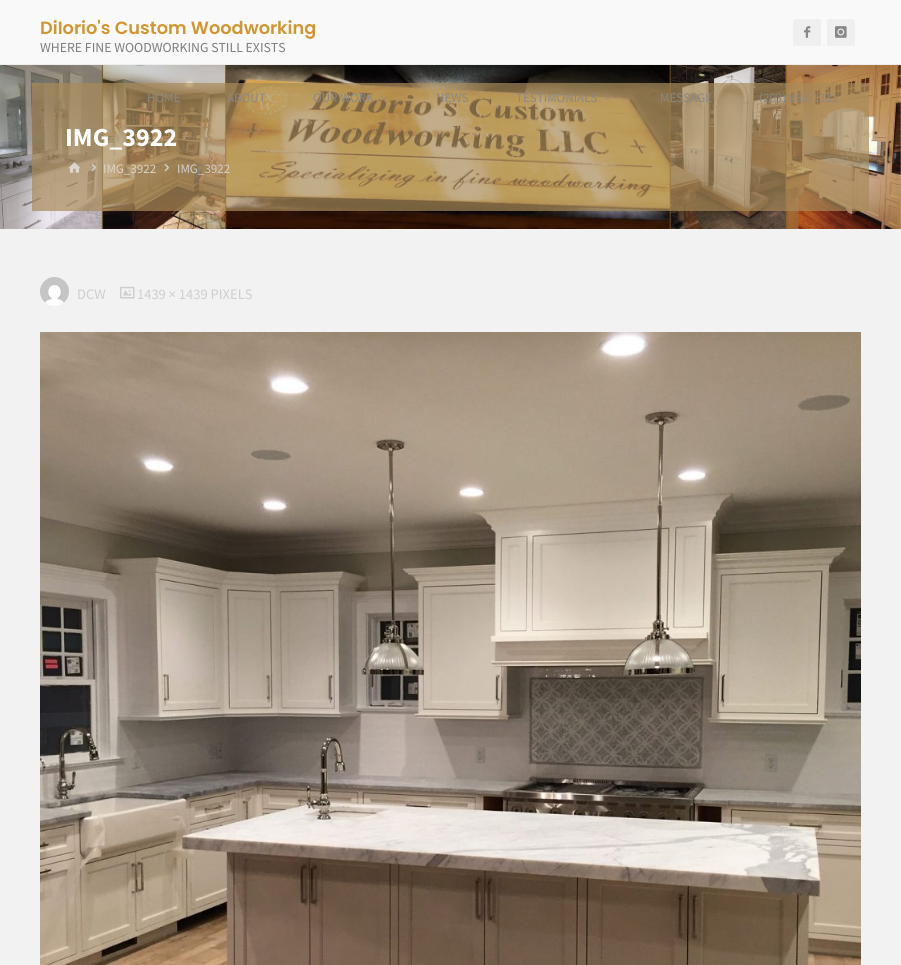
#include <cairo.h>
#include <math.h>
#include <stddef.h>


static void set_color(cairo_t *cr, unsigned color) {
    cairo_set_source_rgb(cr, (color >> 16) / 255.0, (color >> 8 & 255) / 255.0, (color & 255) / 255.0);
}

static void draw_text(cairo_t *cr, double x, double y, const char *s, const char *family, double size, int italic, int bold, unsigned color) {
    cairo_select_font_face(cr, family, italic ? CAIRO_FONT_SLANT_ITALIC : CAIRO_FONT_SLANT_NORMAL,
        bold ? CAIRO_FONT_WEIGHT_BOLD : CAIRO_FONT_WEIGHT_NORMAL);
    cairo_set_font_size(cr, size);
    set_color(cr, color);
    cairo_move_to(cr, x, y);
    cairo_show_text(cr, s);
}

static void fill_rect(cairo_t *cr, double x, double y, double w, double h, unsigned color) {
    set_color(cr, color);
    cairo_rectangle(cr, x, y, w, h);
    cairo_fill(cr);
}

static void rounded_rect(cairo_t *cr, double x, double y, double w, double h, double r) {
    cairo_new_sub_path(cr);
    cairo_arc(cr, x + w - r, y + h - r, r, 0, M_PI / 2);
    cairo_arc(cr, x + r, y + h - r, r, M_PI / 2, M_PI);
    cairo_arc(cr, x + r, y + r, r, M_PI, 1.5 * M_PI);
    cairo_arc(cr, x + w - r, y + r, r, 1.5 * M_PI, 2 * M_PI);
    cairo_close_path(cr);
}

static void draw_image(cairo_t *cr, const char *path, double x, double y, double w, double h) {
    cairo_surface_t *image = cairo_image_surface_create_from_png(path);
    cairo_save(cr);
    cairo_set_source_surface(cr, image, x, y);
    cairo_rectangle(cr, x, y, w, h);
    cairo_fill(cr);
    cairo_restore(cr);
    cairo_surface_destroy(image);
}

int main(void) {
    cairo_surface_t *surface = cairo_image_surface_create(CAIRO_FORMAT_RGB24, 901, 965);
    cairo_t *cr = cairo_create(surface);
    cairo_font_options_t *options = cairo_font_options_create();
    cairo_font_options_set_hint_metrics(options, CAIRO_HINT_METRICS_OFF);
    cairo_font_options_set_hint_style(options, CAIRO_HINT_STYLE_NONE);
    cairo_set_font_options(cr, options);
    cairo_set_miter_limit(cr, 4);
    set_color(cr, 0xFFFFFF);
    cairo_paint(cr);
    draw_image(cr, "assets/img1.png", 900, 65, 1, 164);
    fill_rect(cr, 0, 0, 901, 64, 0xF9F9F9);
    fill_rect(cr, 0, 64, 901, 1, 0xEDEDED);
    draw_text(cr, 40, 34, "DiIorio's Custom Woodworking", "Poppins SemiBold", 17.75, 0, 0, 0xD19630);
    draw_text(cr, 40, 52, "WHERE FINE WOODWORKING STILL EXISTS", "Source Sans Pro", 13.75, 0, 0, 0x7D7D7D);
    set_color(cr, 0xEFEFEF);
    rounded_rect(cr, 793, 19, 28, 27, 2);
    cairo_fill(cr);
    draw_image(cr, "assets/img2.png", 804, 26, 7, 12);
    rounded_rect(cr, 827, 19, 28, 27, 2);
    cairo_fill(cr);
    draw_image(cr, "assets/img3.png", 835, 26, 12, 12);
    draw_image(cr, "assets/img6.png", 0, 65, 901, 164);
    cairo_set_source_rgba(cr, 0.659, 0.545, 0.349, 0.7);
    cairo_rectangle(cr, 32, 83, 837, 128);
    cairo_fill(cr);
    draw_text(cr, 147, 102, "HOME", "Source Sans Pro", 13, 0, 0, 0x888888);
    draw_text(cr, 227, 102, "ABOUT", "Source Sans Pro", 13, 0, 0, 0x888888);
    draw_text(cr, 313, 102, "OUR WORK", "Source Sans Pro", 13, 0, 0, 0x888888);
    draw_image(cr, "assets/img4.png", 380, 96, 8, 4);
    draw_text(cr, 436, 102, "NEWS", "Source Sans Pro", 13, 0, 0, 0x888888);
    draw_text(cr, 516, 102, "TESTIMONIALS", "Source Sans Pro", 13, 0, 0, 0x888888);
    draw_image(cr, "assets/img5.png", 603, 96, 8, 4);
    draw_text(cr, 660, 102, "MESSAGE", "Source Sans Pro", 13, 0, 0, 0x888888);
    draw_text(cr, 759, 102, "(203) 855-1331", "Source Sans Pro", 13, 0, 0, 0x888888);
    draw_text(cr, 65, 146, "IMG_3922", "Source Sans Pro", 26, 0, 1, 0xFFFFFF);
    draw_image(cr, "assets/img7.png", 68, 162, 13, 11);
    draw_image(cr, "assets/img8.png", 91, 163, 5, 9);
    draw_text(cr, 103, 173, "IMG_3922", "Source Sans Pro", 13, 0, 0, 0xDCD4C7);
    draw_image(cr, "assets/img9.png", 164, 163, 5, 9);
    draw_text(cr, 177, 173, "IMG_3922", "Source Sans Pro", 13, 0, 0, 0xCECECE);
    fill_rect(cr, 0, 229, 901, 736, 0xF2F2F2);
    draw_image(cr, "assets/img10.png", 40, 277, 29, 29);
    draw_text(cr, 77, 299, "DCW", "Source Sans Pro", 14.5, 0, 0, 0xCECECE);
    draw_image(cr, "assets/img11.png", 120, 286, 15, 13);
    draw_text(cr, 137, 299, "1439 × 1439 PIXELS", "Source Sans Pro", 14.5, 0, 0, 0xCECECE);
    draw_image(cr, "assets/img12.png", 40, 332, 821, 633);
    cairo_surface_write_to_png(surface, "output.png");
    cairo_font_options_destroy(options);
    cairo_destroy(cr);
    cairo_surface_destroy(surface);
    return 0;
}
